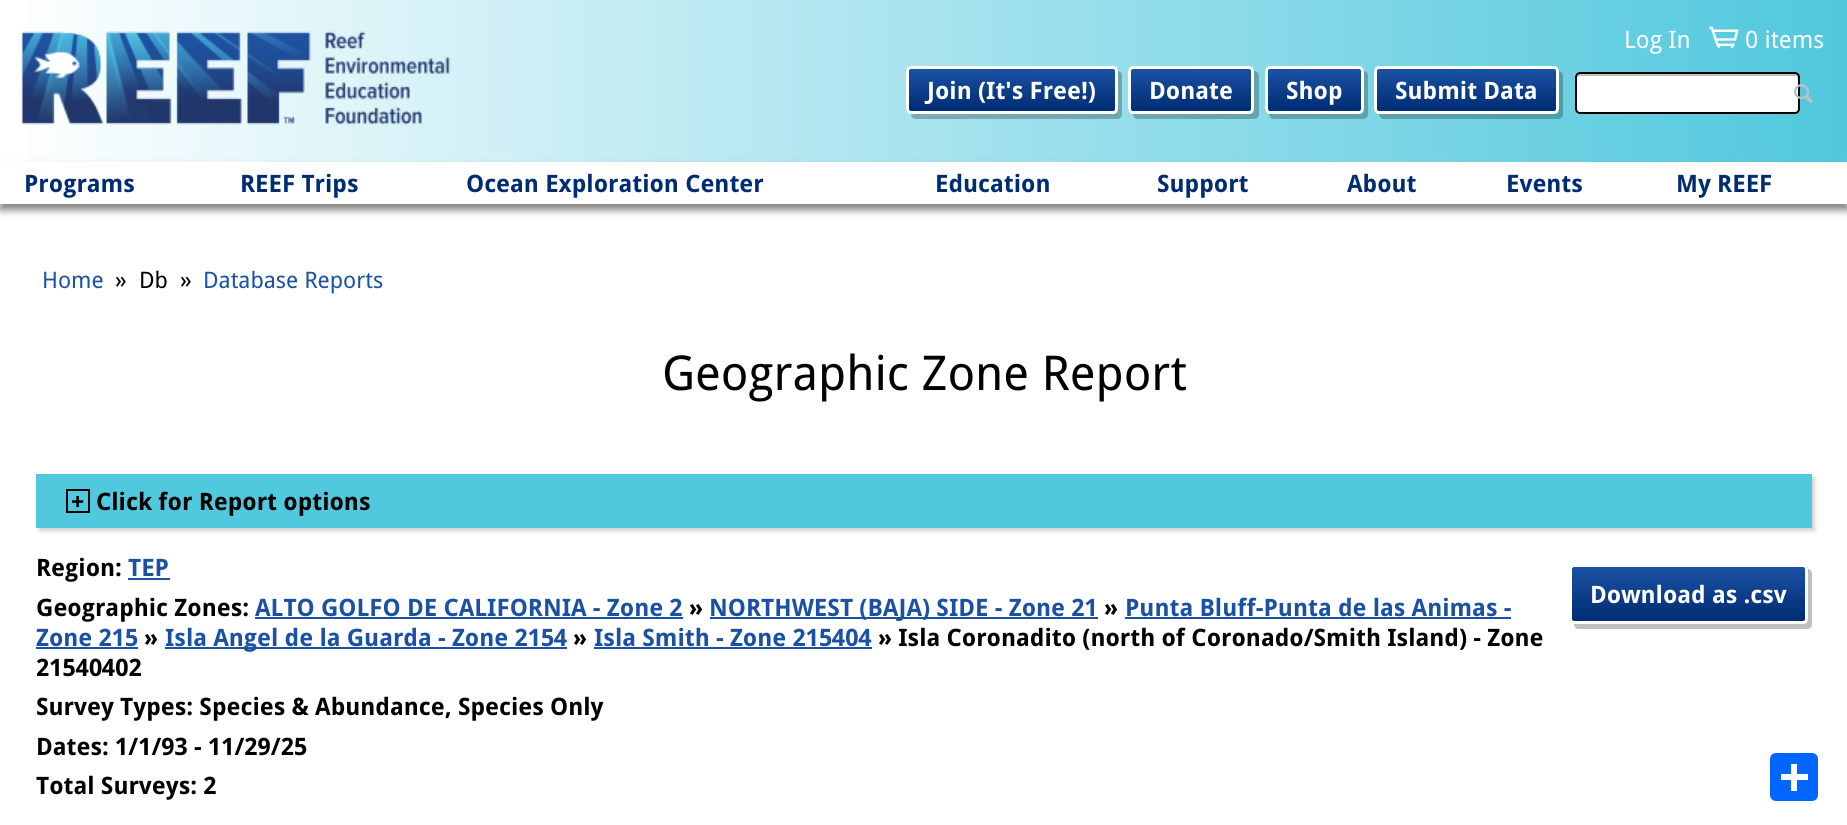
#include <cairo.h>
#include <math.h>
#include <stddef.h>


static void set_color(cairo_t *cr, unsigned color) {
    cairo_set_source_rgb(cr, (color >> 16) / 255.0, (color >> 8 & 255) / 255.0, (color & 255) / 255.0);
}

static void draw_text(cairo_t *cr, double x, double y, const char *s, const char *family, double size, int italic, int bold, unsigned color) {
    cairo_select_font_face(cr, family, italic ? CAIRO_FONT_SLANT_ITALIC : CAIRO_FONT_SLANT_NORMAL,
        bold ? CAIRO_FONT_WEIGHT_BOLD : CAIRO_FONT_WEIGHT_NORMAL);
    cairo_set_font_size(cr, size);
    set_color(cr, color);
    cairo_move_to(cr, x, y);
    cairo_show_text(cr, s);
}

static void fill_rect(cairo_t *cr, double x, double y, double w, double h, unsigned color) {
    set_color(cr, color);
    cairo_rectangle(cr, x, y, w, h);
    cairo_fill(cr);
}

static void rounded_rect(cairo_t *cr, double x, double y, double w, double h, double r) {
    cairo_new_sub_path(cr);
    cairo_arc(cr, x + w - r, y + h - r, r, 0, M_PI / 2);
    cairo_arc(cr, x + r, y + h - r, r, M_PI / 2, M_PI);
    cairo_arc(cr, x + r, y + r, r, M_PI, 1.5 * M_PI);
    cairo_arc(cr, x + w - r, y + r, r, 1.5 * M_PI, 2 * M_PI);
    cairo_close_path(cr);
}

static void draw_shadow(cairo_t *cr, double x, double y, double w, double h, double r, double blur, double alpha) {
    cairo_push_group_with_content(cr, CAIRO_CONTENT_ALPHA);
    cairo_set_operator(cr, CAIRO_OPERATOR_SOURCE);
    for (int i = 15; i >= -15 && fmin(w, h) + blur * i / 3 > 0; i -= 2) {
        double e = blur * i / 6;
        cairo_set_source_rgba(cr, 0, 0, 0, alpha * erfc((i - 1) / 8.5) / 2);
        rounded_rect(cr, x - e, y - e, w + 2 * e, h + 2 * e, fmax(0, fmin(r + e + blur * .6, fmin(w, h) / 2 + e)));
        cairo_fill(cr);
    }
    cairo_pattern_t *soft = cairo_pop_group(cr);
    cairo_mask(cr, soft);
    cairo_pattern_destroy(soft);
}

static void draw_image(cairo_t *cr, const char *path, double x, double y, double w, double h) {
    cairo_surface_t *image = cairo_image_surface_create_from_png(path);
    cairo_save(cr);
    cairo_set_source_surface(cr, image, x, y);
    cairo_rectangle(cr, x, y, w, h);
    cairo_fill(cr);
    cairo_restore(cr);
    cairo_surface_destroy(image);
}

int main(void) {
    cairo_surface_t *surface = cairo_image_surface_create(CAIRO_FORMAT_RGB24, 1847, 825);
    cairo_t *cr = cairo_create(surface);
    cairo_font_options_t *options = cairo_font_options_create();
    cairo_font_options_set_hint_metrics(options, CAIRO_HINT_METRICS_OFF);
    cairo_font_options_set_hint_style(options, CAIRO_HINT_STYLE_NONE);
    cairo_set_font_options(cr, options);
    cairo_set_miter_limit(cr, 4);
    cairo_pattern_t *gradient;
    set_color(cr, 0xFFFFFF);
    cairo_paint(cr);
    gradient = cairo_pattern_create_linear(0, 102, 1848, 102);
    cairo_pattern_add_color_stop_rgba(gradient, 0, 1, 1, 1, 1);
    cairo_pattern_add_color_stop_rgba(gradient, 1, 0.314, 0.784, 0.867, 1);
    cairo_set_source(cr, gradient);
    cairo_pattern_destroy(gradient);
    cairo_rectangle(cr, 26, 0, 1821, 162);
    cairo_fill(cr);
    draw_image(cr, "assets/img1.png", 21, 31, 430, 94);
    draw_text(cr, 1624, 48, "Log In", "Droid Sans", 24, 0, 0, 0xFFFFFF);
    draw_image(cr, "assets/img2.png", 1709, 26, 30, 22);
    draw_text(cr, 1745, 48, "0 items", "Droid Sans", 24, 0, 0, 0xFFFFFF);
    cairo_set_source_rgba(cr, 0, 0, 0, 0.25);
    cairo_new_path(cr);
    cairo_move_to(cr, 911, 114);
    cairo_curve_to(cr, 911, 117, 913, 119, 916, 119);
    cairo_line_to(cr, 1117, 119);
    cairo_curve_to(cr, 1120, 119, 1122, 117, 1122, 114);
    cairo_line_to(cr, 1122, 76);
    cairo_curve_to(cr, 1122, 73, 1120, 71, 1118, 71);
    cairo_line_to(cr, 1118, 110);
    cairo_curve_to(cr, 1118, 112, 1115, 114, 1113, 114);
    cairo_close_path(cr);
    cairo_fill(cr);
    cairo_save(cr);
    rounded_rect(cr, 906, 66, 212, 48, 5);
    cairo_clip(cr);
    gradient = cairo_pattern_create_linear(1012, 69, 1012, 111);
    cairo_pattern_add_color_stop_rgba(gradient, 0, 0.106, 0.318, 0.643, 1);
    cairo_pattern_add_color_stop_rgba(gradient, 1, 0, 0.173, 0.447, 1);
    cairo_set_source(cr, gradient);
    cairo_pattern_destroy(gradient);
    cairo_rectangle(cr, 906, 69, 212, 42);
    cairo_fill(cr);
    cairo_restore(cr);
    rounded_rect(cr, 907.5, 67.5, 209, 45, 3.5);
    set_color(cr, 0xFFFFFF);
    cairo_set_line_width(cr, 3);
    cairo_stroke(cr);
    draw_text(cr, 927, 99, "Join (It's Free!)", "Droid Sans", 24, 0, 1, 0xFFFFFF);
    cairo_set_source_rgba(cr, 0, 0, 0, 0.25);
    cairo_new_path(cr);
    cairo_move_to(cr, 1133, 114);
    cairo_curve_to(cr, 1133, 117, 1135, 119, 1138, 119);
    cairo_line_to(cr, 1254, 119);
    cairo_curve_to(cr, 1257, 119, 1259, 117, 1259, 114);
    cairo_line_to(cr, 1259, 76);
    cairo_curve_to(cr, 1259, 73, 1257, 71, 1254, 71);
    cairo_line_to(cr, 1254, 110);
    cairo_curve_to(cr, 1254, 112, 1252, 114, 1250, 114);
    cairo_close_path(cr);
    cairo_fill(cr);
    cairo_save(cr);
    rounded_rect(cr, 1128, 66, 126, 48, 5);
    cairo_clip(cr);
    gradient = cairo_pattern_create_linear(1191, 69, 1191, 111);
    cairo_pattern_add_color_stop_rgba(gradient, 0, 0.106, 0.318, 0.643, 1);
    cairo_pattern_add_color_stop_rgba(gradient, 1, 0, 0.173, 0.447, 1);
    cairo_set_source(cr, gradient);
    cairo_pattern_destroy(gradient);
    cairo_rectangle(cr, 1128, 69, 126, 42);
    cairo_fill(cr);
    cairo_restore(cr);
    rounded_rect(cr, 1129.5, 67.5, 123, 45, 3.5);
    set_color(cr, 0xFFFFFF);
    cairo_stroke(cr);
    draw_text(cr, 1149, 99, "Donate", "Droid Sans", 24, 0, 1, 0xFFFFFF);
    cairo_set_source_rgba(cr, 0, 0, 0, 0.25);
    cairo_new_path(cr);
    cairo_move_to(cr, 1269, 114);
    cairo_curve_to(cr, 1269, 117, 1271, 119, 1274, 119);
    cairo_line_to(cr, 1363, 119);
    cairo_curve_to(cr, 1366, 119, 1368, 117, 1368, 114);
    cairo_line_to(cr, 1368, 76);
    cairo_curve_to(cr, 1368, 73, 1366, 71, 1364, 71);
    cairo_line_to(cr, 1364, 110);
    cairo_curve_to(cr, 1364, 112, 1361, 114, 1359, 114);
    cairo_close_path(cr);
    cairo_fill(cr);
    cairo_save(cr);
    rounded_rect(cr, 1265, 66, 99, 48, 5);
    cairo_clip(cr);
    gradient = cairo_pattern_create_linear(1314, 69, 1314, 111);
    cairo_pattern_add_color_stop_rgba(gradient, 0, 0.106, 0.318, 0.643, 1);
    cairo_pattern_add_color_stop_rgba(gradient, 1, 0, 0.173, 0.447, 1);
    cairo_set_source(cr, gradient);
    cairo_pattern_destroy(gradient);
    cairo_rectangle(cr, 1265, 69, 99, 42);
    cairo_fill(cr);
    cairo_restore(cr);
    rounded_rect(cr, 1266.5, 67.5, 96, 45, 3.5);
    set_color(cr, 0xFFFFFF);
    cairo_stroke(cr);
    draw_text(cr, 1286, 99, "Shop", "Droid Sans", 24, 0, 1, 0xFFFFFF);
    cairo_set_source_rgba(cr, 0, 0, 0, 0.25);
    cairo_new_path(cr);
    cairo_move_to(cr, 1379, 114);
    cairo_curve_to(cr, 1379, 117, 1381, 119, 1384, 119);
    cairo_line_to(cr, 1558, 119);
    cairo_curve_to(cr, 1561, 119, 1563, 117, 1563, 114);
    cairo_line_to(cr, 1563, 76);
    cairo_curve_to(cr, 1563, 73, 1561, 71, 1558, 71);
    cairo_line_to(cr, 1558, 110);
    cairo_curve_to(cr, 1558, 112, 1556, 114, 1554, 114);
    cairo_close_path(cr);
    cairo_fill(cr);
    cairo_save(cr);
    rounded_rect(cr, 1374, 66, 185, 48, 5);
    cairo_clip(cr);
    gradient = cairo_pattern_create_linear(1466, 69, 1466, 111);
    cairo_pattern_add_color_stop_rgba(gradient, 0, 0.106, 0.318, 0.643, 1);
    cairo_pattern_add_color_stop_rgba(gradient, 1, 0, 0.173, 0.447, 1);
    cairo_set_source(cr, gradient);
    cairo_pattern_destroy(gradient);
    cairo_rectangle(cr, 1374, 69, 185, 42);
    cairo_fill(cr);
    cairo_restore(cr);
    rounded_rect(cr, 1375.5, 67.5, 182, 45, 3.5);
    set_color(cr, 0xFFFFFF);
    cairo_stroke(cr);
    draw_text(cr, 1395, 99, "Submit Data", "Droid Sans", 24, 0, 1, 0xFFFFFF);
    rounded_rect(cr, 1575, 72, 225, 42, 5);
    cairo_fill(cr);
    set_color(cr, 0xBFBFBF);
    cairo_new_path(cr);
    cairo_move_to(cr, 1580, 76);
    cairo_line_to(cr, 1796, 76);
    cairo_curve_to(cr, 1798, 76, 1798, 82, 1798, 85);
    cairo_line_to(cr, 1798, 112);
    cairo_curve_to(cr, 1799, 112, 1799, 111, 1799, 110);
    cairo_line_to(cr, 1799, 77);
    cairo_curve_to(cr, 1799, 75, 1798, 74, 1796, 74);
    cairo_line_to(cr, 1580, 74);
    cairo_curve_to(cr, 1578, 74, 1577, 75, 1577, 77);
    cairo_line_to(cr, 1577, 78);
    cairo_curve_to(cr, 1578, 77, 1579, 76, 1580, 76);
    cairo_close_path(cr);
    cairo_fill(cr);
    rounded_rect(cr, 1576, 73, 223, 40, 4);
    set_color(cr, 0x000000);
    cairo_set_line_width(cr, 2);
    cairo_stroke(cr);
    draw_image(cr, "assets/img3.png", 1794, 84, 19, 20);
    set_color(cr, 0x808080);
    draw_shadow(cr, 0, 168, 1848, 42, 0, 4, 1);
    fill_rect(cr, 0, 162, 1847, 42, 0xFFFFFF);
    draw_text(cr, 24, 192, "Programs", "Droid Sans", 24, 0, 1, 0x002C72);
    draw_text(cr, 240, 192, "REEF Trips", "Droid Sans", 24, 0, 1, 0x002C72);
    draw_text(cr, 466, 192, "Ocean Exploration Center", "Droid Sans", 24, 0, 1, 0x002C72);
    draw_text(cr, 935, 192, "Education", "Droid Sans", 24, 0, 1, 0x002C72);
    draw_text(cr, 1157, 192, "Support", "Droid Sans", 24, 0, 1, 0x002C72);
    draw_text(cr, 1347, 192, "About", "Droid Sans", 24, 0, 1, 0x002C72);
    draw_text(cr, 1506, 192, "Events", "Droid Sans", 24, 0, 1, 0x002C72);
    draw_text(cr, 1676, 192, "My REEF", "Droid Sans", 24, 0, 1, 0x002C72);
    draw_text(cr, 42, 288, "Home", "Droid Sans", 22.75, 0, 0, 0x1B51A4);
    draw_text(cr, 115, 288, "»", "Droid Sans", 24, 0, 0, 0x000000);
    draw_text(cr, 139, 288, "Db", "Droid Sans", 22.75, 0, 0, 0x000000);
    draw_text(cr, 180, 288, "»", "Droid Sans", 24, 0, 0, 0x000000);
    draw_text(cr, 203, 288, "Database Reports", "Droid Sans", 22.75, 0, 0, 0x1B51A4);
    draw_text(cr, 662, 390, "Geographic Zone Report", "Droid Sans", 48, 0, 0, 0x000000);
    set_color(cr, 0xD3D3D3);
    draw_shadow(cr, 39, 477, 1776, 54, 0, 2, 1);
    fill_rect(cr, 36, 474, 1776, 54, 0x50C8DD);
    cairo_rectangle(cr, 67, 490, 22, 22);
    set_color(cr, 0x000000);
    cairo_stroke(cr);
    draw_text(cr, 71, 510, "+", "Droid Sans", 24, 0, 1, 0x000000);
    draw_text(cr, 96, 510, "Click for Report options", "Droid Sans", 24, 0, 1, 0x000000);
    draw_text(cr, 36, 576, "Region:", "Droid Sans", 24, 0, 1, 0x000000);
    draw_text(cr, 128, 576, "TEP", "Droid Sans", 24, 0, 1, 0x1B51A4);
    fill_rect(cr, 128, 578, 42, 2, 0x1B51A4);
    draw_text(cr, 36, 616, "Geographic Zones:", "Droid Sans", 24, 0, 1, 0x000000);
    draw_text(cr, 255, 616, "ALTO GOLFO DE CALIFORNIA - Zone 2", "Droid Sans", 24, 0, 1, 0x1B51A4);
    fill_rect(cr, 255, 617, 428, 2, 0x1B51A4);
    draw_text(cr, 689, 616, "»", "Droid Sans", 24, 0, 1, 0x000000);
    fill_rect(cr, 710, 617, 388, 2, 0x1B51A4);
    draw_text(cr, 709, 616, "NORTHWEST (BAJA) SIDE - Zone 21", "Droid Sans", 24, 0, 1, 0x1B51A4);
    draw_text(cr, 1104, 616, "»", "Droid Sans", 24, 0, 1, 0x000000);
    draw_text(cr, 1125, 616, "Punta Bluff-Punta de las Animas -", "Droid Sans", 24, 0, 1, 0x1B51A4);
    fill_rect(cr, 1125, 617, 386, 2, 0x1B51A4);
    draw_text(cr, 36, 646, "Zone 215", "Droid Sans", 24, 0, 1, 0x1B51A4);
    fill_rect(cr, 36, 647, 102, 2, 0x1B51A4);
    draw_text(cr, 144, 646, "»", "Droid Sans", 24, 0, 1, 0x000000);
    fill_rect(cr, 165, 647, 402, 2, 0x1B51A4);
    draw_text(cr, 165, 646, "Isla Angel de la Guarda - Zone 2154", "Droid Sans", 24, 0, 1, 0x1B51A4);
    draw_text(cr, 573, 646, "»", "Droid Sans", 24, 0, 1, 0x000000);
    draw_text(cr, 594, 646, "Isla Smith - Zone 215404", "Droid Sans", 24, 0, 1, 0x1B51A4);
    fill_rect(cr, 594, 647, 278, 2, 0x1B51A4);
    draw_text(cr, 878, 646, "» Isla Coronadito (north of Coronado/Smith Island) - Zone", "Droid Sans", 24, 0, 1, 0x000000);
    draw_text(cr, 36, 676, "21540402", "Droid Sans", 24, 0, 1, 0x000000);
    draw_text(cr, 36, 715, "Survey Types: Species & Abundance, Species Only", "Droid Sans", 24, 0, 1, 0x000000);
    draw_text(cr, 36, 755, "Dates: 1/1/93 - 11/29/25", "Droid Sans", 24, 0, 1, 0x000000);
    draw_text(cr, 36, 794, "Total Surveys: 2", "Droid Sans", 24, 0, 1, 0x000000);
    set_color(cr, 0xBFBFBF);
    cairo_new_path(cr);
    cairo_move_to(cr, 1574, 624);
    cairo_curve_to(cr, 1574, 627, 1576, 629, 1579, 629);
    cairo_line_to(cr, 1807, 629);
    cairo_curve_to(cr, 1810, 629, 1812, 627, 1812, 624);
    cairo_line_to(cr, 1812, 574);
    cairo_curve_to(cr, 1812, 571, 1810, 569, 1808, 569);
    cairo_line_to(cr, 1808, 620);
    cairo_curve_to(cr, 1808, 622, 1805, 624, 1803, 624);
    cairo_close_path(cr);
    cairo_fill(cr);
    cairo_save(cr);
    rounded_rect(cr, 1569, 564, 239, 60, 5);
    cairo_clip(cr);
    gradient = cairo_pattern_create_linear(1688, 567, 1688, 621);
    cairo_pattern_add_color_stop_rgba(gradient, 0, 0.106, 0.318, 0.643, 1);
    cairo_pattern_add_color_stop_rgba(gradient, 1, 0, 0.173, 0.447, 1);
    cairo_set_source(cr, gradient);
    cairo_pattern_destroy(gradient);
    cairo_rectangle(cr, 1569, 567, 239, 54);
    cairo_fill(cr);
    cairo_restore(cr);
    rounded_rect(cr, 1570.5, 565.5, 236, 57, 3.5);
    set_color(cr, 0xFFFFFF);
    cairo_set_line_width(cr, 3);
    cairo_stroke(cr);
    draw_text(cr, 1590, 603, "Download as .csv", "Droid Sans", 24, 0, 1, 0xFFFFFF);
    set_color(cr, 0x0166FF);
    rounded_rect(cr, 1770, 753, 48, 48, 6);
    cairo_fill(cr);
    fill_rect(cr, 1791, 764, 6, 27, 0xFFFFFF);
    fill_rect(cr, 1781, 774, 27, 6, 0xFFFFFF);
    cairo_surface_write_to_png(surface, "output.png");
    cairo_font_options_destroy(options);
    cairo_destroy(cr);
    cairo_surface_destroy(surface);
    return 0;
}
